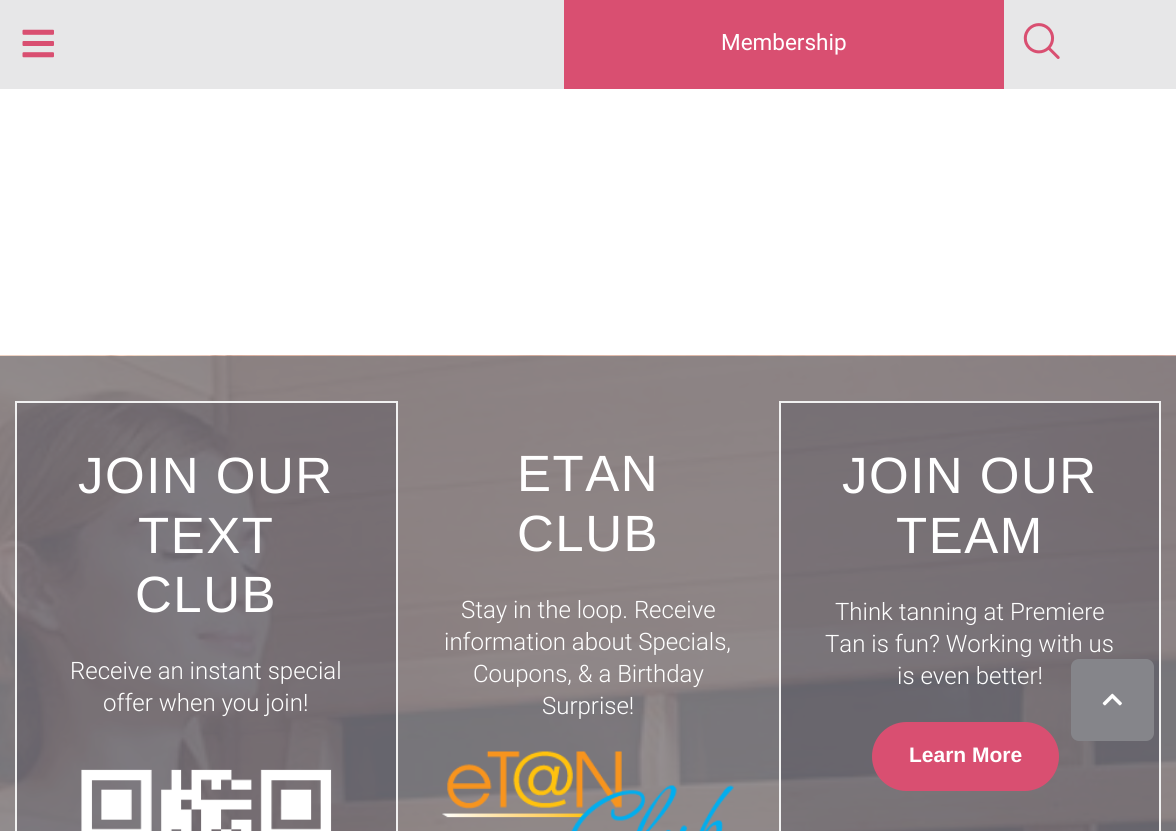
#include <cairo.h>
#include <math.h>
#include <stddef.h>


static void set_color(cairo_t *cr, unsigned color) {
    cairo_set_source_rgb(cr, (color >> 16) / 255.0, (color >> 8 & 255) / 255.0, (color & 255) / 255.0);
}

static void draw_text(cairo_t *cr, double x, double y, const char *s, const char *family, double size, int italic, int bold, unsigned color) {
    cairo_select_font_face(cr, family, italic ? CAIRO_FONT_SLANT_ITALIC : CAIRO_FONT_SLANT_NORMAL,
        bold ? CAIRO_FONT_WEIGHT_BOLD : CAIRO_FONT_WEIGHT_NORMAL);
    cairo_set_font_size(cr, size);
    set_color(cr, color);
    cairo_move_to(cr, x, y);
    cairo_show_text(cr, s);
}

static void draw_spaced(cairo_t *cr, double x, double y, const char *s, double letter, double word) {
    cairo_move_to(cr, x, y);
    while (*s) {
        char ch[5] = {0};
        int n = 0;
        do ch[n++] = *s++; while ((*s & 0xC0) == 0x80);
        cairo_show_text(cr, ch);
        cairo_rel_move_to(cr, letter + word * (*ch == ' '), 0);
    }
}

static void fill_rect(cairo_t *cr, double x, double y, double w, double h, unsigned color) {
    set_color(cr, color);
    cairo_rectangle(cr, x, y, w, h);
    cairo_fill(cr);
}

static void rounded_rect(cairo_t *cr, double x, double y, double w, double h, double r) {
    cairo_new_sub_path(cr);
    cairo_arc(cr, x + w - r, y + h - r, r, 0, M_PI / 2);
    cairo_arc(cr, x + r, y + h - r, r, M_PI / 2, M_PI);
    cairo_arc(cr, x + r, y + r, r, M_PI, 1.5 * M_PI);
    cairo_arc(cr, x + w - r, y + r, r, 1.5 * M_PI, 2 * M_PI);
    cairo_close_path(cr);
}

static void draw_image(cairo_t *cr, const char *path, double x, double y, double w, double h) {
    cairo_surface_t *image = cairo_image_surface_create_from_png(path);
    cairo_save(cr);
    cairo_set_source_surface(cr, image, x, y);
    cairo_rectangle(cr, x, y, w, h);
    cairo_fill(cr);
    cairo_restore(cr);
    cairo_surface_destroy(image);
}

int main(void) {
    cairo_surface_t *surface = cairo_image_surface_create(CAIRO_FORMAT_RGB24, 1176, 831);
    cairo_t *cr = cairo_create(surface);
    cairo_font_options_t *options = cairo_font_options_create();
    cairo_font_options_set_hint_metrics(options, CAIRO_HINT_METRICS_OFF);
    cairo_font_options_set_hint_style(options, CAIRO_HINT_STYLE_NONE);
    cairo_set_font_options(cr, options);
    cairo_set_miter_limit(cr, 4);
    set_color(cr, 0xFFFFFF);
    cairo_paint(cr);
    fill_rect(cr, 0, 0, 1176, 89, 0xE7E7E8);
    draw_image(cr, "assets/img1.png", 22, 29, 32, 29);
    fill_rect(cr, 564, 0, 440, 89, 0xD94F71);
    draw_text(cr, 721, 50, "Membership", "Roboto", 22.5, 0, 0, 0xFFFFFF);
    draw_image(cr, "assets/img2.png", 1023, 23, 37, 36);
    draw_image(cr, "assets/img3.png", 0, 355, 1176, 476);
    cairo_set_source_rgba(cr, 0.137, 0.141, 0.216, 0.2);
    cairo_rectangle(cr, 16, 402, 381, 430);
    cairo_fill_preserve(cr);
    set_color(cr, 0xF1F1F1);
    cairo_stroke(cr);
    cairo_select_font_face(cr, "Liberation Sans", CAIRO_FONT_SLANT_NORMAL, CAIRO_FONT_WEIGHT_NORMAL);
    cairo_set_font_size(cr, 51);
    set_color(cr, 0xFFFFFF);
    draw_spaced(cr, 78, 493, "JOIN OUR", 1.5, 0);
    draw_spaced(cr, 138, 553, "TEXT", 1.5, 0);
    draw_spaced(cr, 135, 612, "CLUB", 1.5, 0);
    draw_text(cr, 70, 679, "Receive an instant special", "Roboto Light", 24, 0, 0, 0xFFFFFF);
    draw_text(cr, 103, 711, "offer when you join!", "Roboto Light", 24, 0, 0, 0xFFFFFF);
    draw_image(cr, "assets/img4.png", 81, 769, 251, 62);
    cairo_select_font_face(cr, "Liberation Sans", CAIRO_FONT_SLANT_NORMAL, CAIRO_FONT_WEIGHT_NORMAL);
    cairo_set_font_size(cr, 51);
    draw_spaced(cr, 517, 491, "ETAN", 1.5, 0);
    draw_spaced(cr, 517, 551, "CLUB", 1.5, 0);
    draw_text(cr, 461, 618, "Stay in the loop. Receive", "Roboto Light", 24, 0, 0, 0xFFFFFF);
    draw_text(cr, 444, 650, "information about Specials,", "Roboto Light", 24, 0, 0, 0xFFFFFF);
    draw_text(cr, 473, 682, "Coupons, & a Birthday", "Roboto Light", 24, 0, 0, 0xFFFFFF);
    draw_text(cr, 542, 714, "Surprise!", "Roboto Light", 24, 0, 0, 0xFFFFFF);
    draw_image(cr, "assets/img5.png", 442, 751, 292, 80);
    cairo_set_source_rgba(cr, 0.137, 0.141, 0.216, 0.2);
    cairo_rectangle(cr, 780, 402, 380, 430);
    cairo_fill_preserve(cr);
    set_color(cr, 0xF1F1F1);
    cairo_stroke(cr);
    cairo_select_font_face(cr, "Liberation Sans", CAIRO_FONT_SLANT_NORMAL, CAIRO_FONT_WEIGHT_NORMAL);
    cairo_set_font_size(cr, 51);
    set_color(cr, 0xFFFFFF);
    draw_spaced(cr, 842, 493, "JOIN OUR", 1.5, 0);
    draw_spaced(cr, 896, 553, "TEAM", 1.5, 0);
    draw_text(cr, 835, 620, "Think tanning at Premiere", "Roboto Light", 24, 0, 0, 0xFFFFFF);
    draw_text(cr, 825, 652, "Tan is fun? Working with us", "Roboto Light", 24, 0, 0, 0xFFFFFF);
    draw_text(cr, 897, 684, "is even better!", "Roboto Light", 24, 0, 0, 0xFFFFFF);
    set_color(cr, 0xD94F71);
    rounded_rect(cr, 872, 722, 187, 69, 34.5);
    cairo_fill(cr);
    draw_text(cr, 909, 762, "Learn More", "Liberation Sans", 21, 0, 1, 0xFFFFFF);
    set_color(cr, 0x85858A);
    rounded_rect(cr, 1071, 659, 83, 82, 8);
    cairo_fill(cr);
    draw_image(cr, "assets/img6.png", 1102, 693, 20, 13);
    cairo_surface_write_to_png(surface, "output.png");
    cairo_font_options_destroy(options);
    cairo_destroy(cr);
    cairo_surface_destroy(surface);
    return 0;
}
